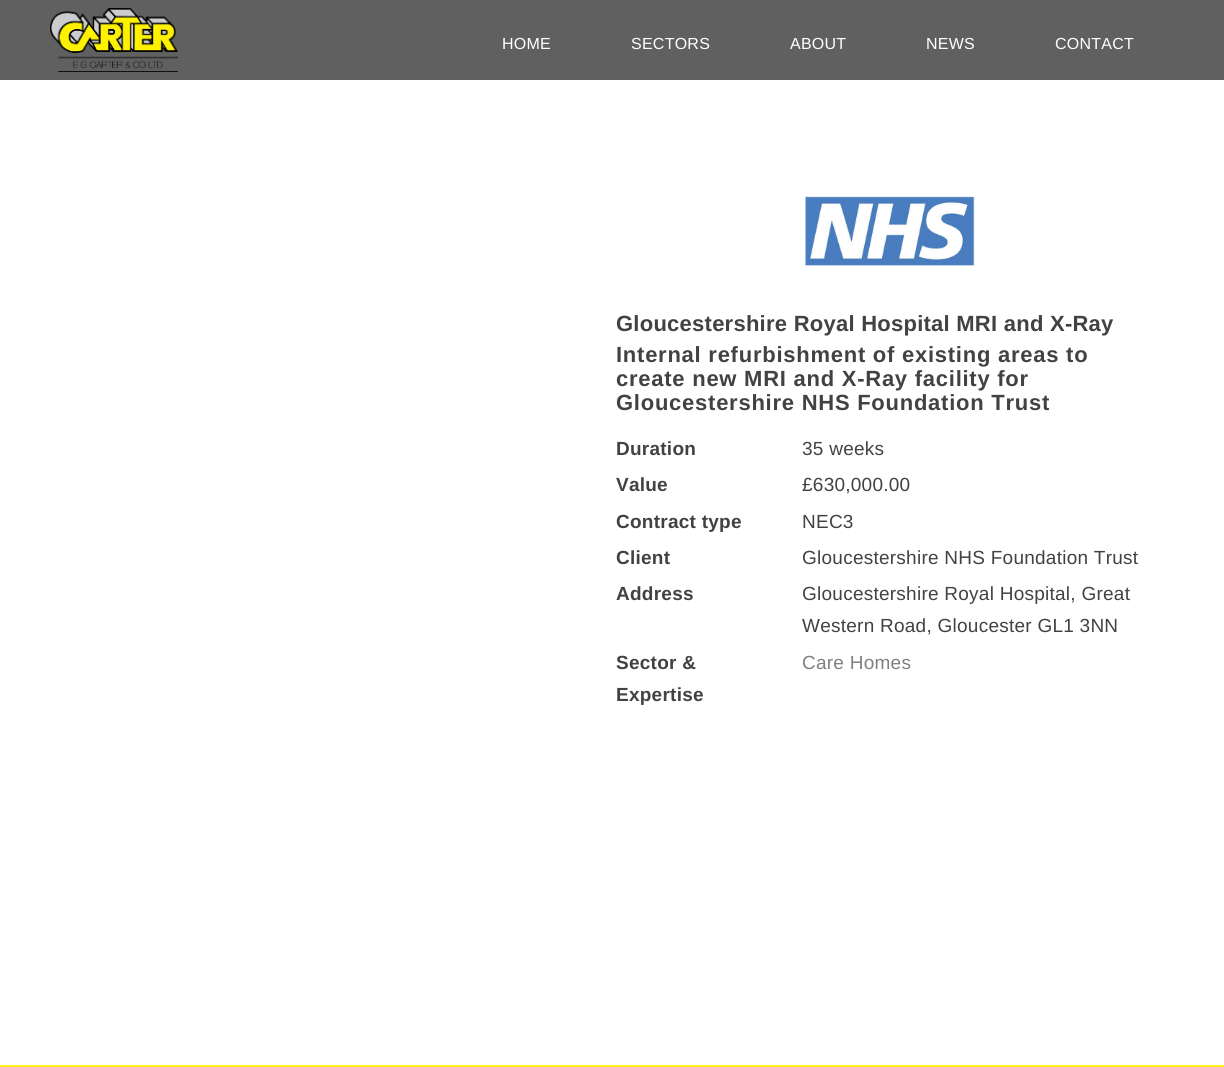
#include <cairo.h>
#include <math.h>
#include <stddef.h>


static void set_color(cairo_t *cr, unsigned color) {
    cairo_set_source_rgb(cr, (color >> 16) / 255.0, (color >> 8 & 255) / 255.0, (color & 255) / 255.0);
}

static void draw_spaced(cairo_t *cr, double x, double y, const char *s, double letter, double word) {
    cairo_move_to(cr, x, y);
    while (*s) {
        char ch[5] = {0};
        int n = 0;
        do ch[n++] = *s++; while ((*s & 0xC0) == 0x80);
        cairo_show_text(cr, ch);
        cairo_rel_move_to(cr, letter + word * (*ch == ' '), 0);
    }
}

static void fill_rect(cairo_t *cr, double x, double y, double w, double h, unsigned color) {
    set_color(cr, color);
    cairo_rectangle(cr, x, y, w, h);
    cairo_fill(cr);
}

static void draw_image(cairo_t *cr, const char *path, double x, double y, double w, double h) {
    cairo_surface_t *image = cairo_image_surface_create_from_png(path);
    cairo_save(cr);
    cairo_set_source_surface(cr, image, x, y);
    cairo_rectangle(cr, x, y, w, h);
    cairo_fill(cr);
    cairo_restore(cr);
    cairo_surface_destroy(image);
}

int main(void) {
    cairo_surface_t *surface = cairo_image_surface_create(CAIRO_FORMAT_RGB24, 1224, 1067);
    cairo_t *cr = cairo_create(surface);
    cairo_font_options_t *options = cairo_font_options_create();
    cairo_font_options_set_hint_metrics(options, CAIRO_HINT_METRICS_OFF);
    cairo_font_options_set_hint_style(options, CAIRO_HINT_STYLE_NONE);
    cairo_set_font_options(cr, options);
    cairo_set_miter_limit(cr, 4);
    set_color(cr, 0xFFFFFF);
    cairo_paint(cr);
    fill_rect(cr, 0, 0, 1224, 80, 0x606060);
    draw_image(cr, "assets/img1.png", 50, 8, 128, 64);
    cairo_select_font_face(cr, "Liberation Sans", CAIRO_FONT_SLANT_NORMAL, CAIRO_FONT_WEIGHT_NORMAL);
    cairo_set_font_size(cr, 16);
    set_color(cr, 0xFFFFFF);
    draw_spaced(cr, 502, 49, "HOME", 0.25, 0);
    draw_spaced(cr, 631, 49, "SECTORS", 0.25, 0);
    draw_spaced(cr, 790, 49, "ABOUT", 0.25, 0);
    draw_spaced(cr, 926, 49, "NEWS", 0.25, 0);
    draw_spaced(cr, 1055, 49, "CONTACT", 0.25, 0);
    fill_rect(cr, 0, 1065, 1224, 2, 0xFFF10D);
    draw_image(cr, "assets/img2.png", 805, 196, 170, 70);
    cairo_select_font_face(cr, "Liberation Sans", CAIRO_FONT_SLANT_NORMAL, CAIRO_FONT_WEIGHT_BOLD);
    cairo_set_font_size(cr, 22);
    set_color(cr, 0x424241);
    draw_spaced(cr, 616, 331, "Gloucestershire Royal Hospital MRI and X-Ray", 0.25, 0);
    draw_spaced(cr, 616, 362, "Internal refurbishment of existing areas to", 0.75, 0);
    draw_spaced(cr, 616, 386, "create new MRI and X-Ray facility for", 0.75, 0);
    draw_spaced(cr, 616, 410, "Gloucestershire NHS Foundation Trust", 0.75, 0);
    cairo_set_font_size(cr, 19);
    draw_spaced(cr, 616, 455, "Duration", 0.25, 0);
    cairo_select_font_face(cr, "Liberation Sans", CAIRO_FONT_SLANT_NORMAL, CAIRO_FONT_WEIGHT_NORMAL);
    draw_spaced(cr, 802, 455, "35 weeks", 0.25, 0);
    cairo_select_font_face(cr, "Liberation Sans", CAIRO_FONT_SLANT_NORMAL, CAIRO_FONT_WEIGHT_BOLD);
    draw_spaced(cr, 616, 491, "Value", 0.25, 0);
    cairo_select_font_face(cr, "Liberation Sans", CAIRO_FONT_SLANT_NORMAL, CAIRO_FONT_WEIGHT_NORMAL);
    draw_spaced(cr, 802, 491, "£630,000.00", 0.25, 0);
    cairo_select_font_face(cr, "Liberation Sans", CAIRO_FONT_SLANT_NORMAL, CAIRO_FONT_WEIGHT_BOLD);
    draw_spaced(cr, 616, 528, "Contract type", 0.25, 0);
    cairo_select_font_face(cr, "Liberation Sans", CAIRO_FONT_SLANT_NORMAL, CAIRO_FONT_WEIGHT_NORMAL);
    draw_spaced(cr, 802, 528, "NEC3", 0.25, 0);
    cairo_select_font_face(cr, "Liberation Sans", CAIRO_FONT_SLANT_NORMAL, CAIRO_FONT_WEIGHT_BOLD);
    draw_spaced(cr, 616, 564, "Client", 0.25, 0);
    cairo_select_font_face(cr, "Liberation Sans", CAIRO_FONT_SLANT_NORMAL, CAIRO_FONT_WEIGHT_NORMAL);
    draw_spaced(cr, 802, 564, "Gloucestershire NHS Foundation Trust", 0.25, 0);
    cairo_select_font_face(cr, "Liberation Sans", CAIRO_FONT_SLANT_NORMAL, CAIRO_FONT_WEIGHT_BOLD);
    draw_spaced(cr, 616, 600, "Address", 0.25, 0);
    cairo_select_font_face(cr, "Liberation Sans", CAIRO_FONT_SLANT_NORMAL, CAIRO_FONT_WEIGHT_NORMAL);
    draw_spaced(cr, 802, 600, "Gloucestershire Royal Hospital, Great", 0.25, 0);
    draw_spaced(cr, 802, 632, "Western Road, Gloucester GL1 3NN", 0.25, 0);
    cairo_select_font_face(cr, "Liberation Sans", CAIRO_FONT_SLANT_NORMAL, CAIRO_FONT_WEIGHT_BOLD);
    draw_spaced(cr, 616, 669, "Sector &", 0.25, 0);
    draw_spaced(cr, 616, 701, "Expertise", 0.25, 0);
    cairo_select_font_face(cr, "Liberation Sans", CAIRO_FONT_SLANT_NORMAL, CAIRO_FONT_WEIGHT_NORMAL);
    set_color(cr, 0x808080);
    draw_spaced(cr, 802, 669, "Care Homes", 0.25, 0);
    cairo_surface_write_to_png(surface, "output.png");
    cairo_font_options_destroy(options);
    cairo_destroy(cr);
    cairo_surface_destroy(surface);
    return 0;
}
